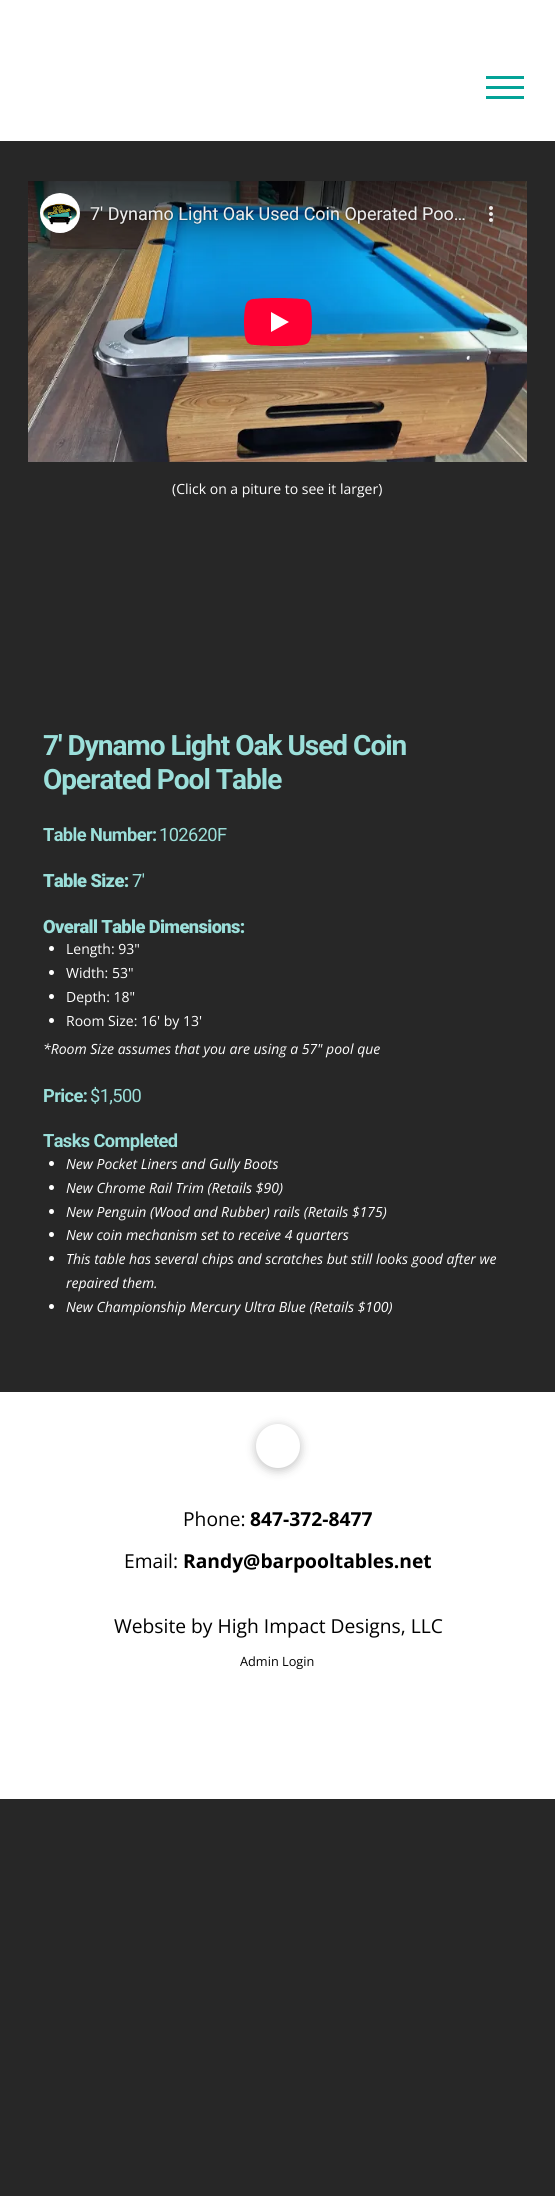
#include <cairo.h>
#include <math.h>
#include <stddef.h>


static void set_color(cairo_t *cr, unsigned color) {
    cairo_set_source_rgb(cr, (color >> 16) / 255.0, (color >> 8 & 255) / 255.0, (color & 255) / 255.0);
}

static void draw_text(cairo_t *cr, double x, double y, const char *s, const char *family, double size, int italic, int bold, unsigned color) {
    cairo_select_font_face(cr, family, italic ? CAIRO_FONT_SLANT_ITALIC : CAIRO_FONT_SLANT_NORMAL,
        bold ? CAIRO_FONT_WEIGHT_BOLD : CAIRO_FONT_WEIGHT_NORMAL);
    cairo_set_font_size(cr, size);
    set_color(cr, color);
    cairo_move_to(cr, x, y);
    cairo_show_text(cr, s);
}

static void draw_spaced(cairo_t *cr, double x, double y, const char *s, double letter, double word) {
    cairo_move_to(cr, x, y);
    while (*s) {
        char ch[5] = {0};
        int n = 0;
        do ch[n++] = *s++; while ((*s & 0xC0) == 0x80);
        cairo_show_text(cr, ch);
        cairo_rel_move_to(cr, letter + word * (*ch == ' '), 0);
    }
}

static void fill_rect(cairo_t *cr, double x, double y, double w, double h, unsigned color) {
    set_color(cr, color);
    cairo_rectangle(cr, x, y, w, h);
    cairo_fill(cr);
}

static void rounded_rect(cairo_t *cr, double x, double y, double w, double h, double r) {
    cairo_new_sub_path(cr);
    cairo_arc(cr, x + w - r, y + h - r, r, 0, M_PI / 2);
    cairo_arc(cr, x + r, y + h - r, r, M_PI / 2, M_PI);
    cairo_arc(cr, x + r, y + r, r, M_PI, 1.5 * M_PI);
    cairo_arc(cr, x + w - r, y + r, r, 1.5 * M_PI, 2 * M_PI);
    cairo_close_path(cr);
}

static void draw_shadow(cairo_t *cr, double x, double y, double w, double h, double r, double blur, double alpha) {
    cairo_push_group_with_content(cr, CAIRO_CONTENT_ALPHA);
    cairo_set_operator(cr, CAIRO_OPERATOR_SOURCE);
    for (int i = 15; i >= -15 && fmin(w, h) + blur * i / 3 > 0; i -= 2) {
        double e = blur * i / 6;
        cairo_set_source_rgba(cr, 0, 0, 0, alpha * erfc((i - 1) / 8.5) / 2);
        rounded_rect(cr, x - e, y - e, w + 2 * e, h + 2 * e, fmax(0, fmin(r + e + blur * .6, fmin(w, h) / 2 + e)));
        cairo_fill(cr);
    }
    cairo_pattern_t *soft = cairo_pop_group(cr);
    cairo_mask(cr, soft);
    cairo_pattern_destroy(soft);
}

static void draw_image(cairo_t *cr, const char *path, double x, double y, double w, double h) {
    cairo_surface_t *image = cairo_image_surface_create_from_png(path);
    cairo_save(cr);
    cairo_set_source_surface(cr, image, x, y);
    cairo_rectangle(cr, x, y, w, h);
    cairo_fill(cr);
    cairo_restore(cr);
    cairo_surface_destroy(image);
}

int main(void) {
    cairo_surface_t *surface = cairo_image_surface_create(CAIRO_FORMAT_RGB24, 555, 2196);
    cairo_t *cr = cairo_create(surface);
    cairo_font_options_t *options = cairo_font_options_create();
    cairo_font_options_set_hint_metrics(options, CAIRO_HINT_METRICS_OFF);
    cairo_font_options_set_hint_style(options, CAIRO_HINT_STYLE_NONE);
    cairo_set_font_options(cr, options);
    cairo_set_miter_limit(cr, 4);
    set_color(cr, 0x272727);
    cairo_paint(cr);
    fill_rect(cr, 0, 0, 555, 141, 0xFFFFFF);
    fill_rect(cr, 486, 76, 38, 3, 0x03A397);
    fill_rect(cr, 486, 86, 38, 3, 0x03A397);
    fill_rect(cr, 486, 96, 38, 3, 0x03A397);
    draw_image(cr, "assets/img1.png", 28, 181, 499, 281);
    draw_text(cr, 172, 494, "(Click on a piture to see it larger)", "Open Sans", 14, 0, 0, 0xFFFFFF);
    cairo_select_font_face(cr, "Roboto", CAIRO_FONT_SLANT_NORMAL, CAIRO_FONT_WEIGHT_BOLD);
    cairo_set_font_size(cr, 28);
    set_color(cr, 0x9BDFDA);
    draw_spaced(cr, 43, 755, "7′ Dynamo Light Oak Used Coin", -1, 0);
    draw_spaced(cr, 43, 789, "Operated Pool Table", -1, 0);
    cairo_set_font_size(cr, 18.25);
    draw_spaced(cr, 43, 841, "Table Number:", -0.6, 0);
    cairo_select_font_face(cr, "Roboto", CAIRO_FONT_SLANT_NORMAL, CAIRO_FONT_WEIGHT_NORMAL);
    draw_spaced(cr, 159, 841, "102620F", -0.6, 0);
    cairo_select_font_face(cr, "Roboto Black", CAIRO_FONT_SLANT_NORMAL, CAIRO_FONT_WEIGHT_NORMAL);
    draw_spaced(cr, 43, 887, "Table Size:", -0.6, 0);
    cairo_select_font_face(cr, "Roboto", CAIRO_FONT_SLANT_NORMAL, CAIRO_FONT_WEIGHT_NORMAL);
    draw_spaced(cr, 132, 887, "7'", -0.6, 0);
    cairo_select_font_face(cr, "Roboto Black", CAIRO_FONT_SLANT_NORMAL, CAIRO_FONT_WEIGHT_NORMAL);
    draw_spaced(cr, 43, 933, "Overall Table Dimensions:", -0.6, 0);
    set_color(cr, 0xFFFFFF);
    cairo_new_path(cr);
    cairo_arc(cr, 51.5, 948.5, 2.5, 0, 2 * M_PI);
    cairo_fill(cr);
    draw_text(cr, 66, 954, "Length: 93\"", "Open Sans", 14, 0, 0, 0xFFFFFF);
    cairo_new_path(cr);
    cairo_arc(cr, 51.5, 972.5, 2.5, 0, 2 * M_PI);
    cairo_fill(cr);
    draw_text(cr, 66, 978, "Width: 53\"", "Open Sans", 14, 0, 0, 0xFFFFFF);
    cairo_new_path(cr);
    cairo_arc(cr, 51.5, 996.5, 2.5, 0, 2 * M_PI);
    cairo_fill(cr);
    draw_text(cr, 66, 1002, "Depth: 18\"", "Open Sans", 14, 0, 0, 0xFFFFFF);
    cairo_new_path(cr);
    cairo_arc(cr, 51.5, 1020.5, 2.5, 0, 2 * M_PI);
    cairo_fill(cr);
    draw_text(cr, 66, 1026, "Room Size: 16' by 13'", "Open Sans", 14, 0, 0, 0xFFFFFF);
    draw_text(cr, 43, 1054, "*Room Size assumes that you are using a 57\" pool que", "Open Sans", 14, 1, 0, 0xFFFFFF);
    cairo_select_font_face(cr, "Roboto", CAIRO_FONT_SLANT_NORMAL, CAIRO_FONT_WEIGHT_BOLD);
    cairo_set_font_size(cr, 18.25);
    set_color(cr, 0x9BDFDA);
    draw_spaced(cr, 43, 1102, "Price:", -0.6, 0);
    cairo_select_font_face(cr, "Roboto", CAIRO_FONT_SLANT_NORMAL, CAIRO_FONT_WEIGHT_NORMAL);
    draw_spaced(cr, 90, 1102, "$1,500", -0.6, 0);
    cairo_select_font_face(cr, "Roboto", CAIRO_FONT_SLANT_NORMAL, CAIRO_FONT_WEIGHT_BOLD);
    draw_spaced(cr, 43, 1147, "Tasks Completed", -0.6, 0);
    set_color(cr, 0xFFFFFF);
    cairo_new_path(cr);
    cairo_arc(cr, 51.5, 1163.5, 2.5, 0, 2 * M_PI);
    cairo_fill(cr);
    draw_text(cr, 66, 1169, "New Pocket Liners and Gully Boots", "Open Sans", 14, 1, 0, 0xFFFFFF);
    cairo_new_path(cr);
    cairo_arc(cr, 51.5, 1187.5, 2.5, 0, 2 * M_PI);
    cairo_fill(cr);
    draw_text(cr, 66, 1193, "New Chrome Rail Trim (Retails $90)", "Open Sans", 14, 1, 0, 0xFFFFFF);
    cairo_new_path(cr);
    cairo_arc(cr, 51.5, 1211.5, 2.5, 0, 2 * M_PI);
    cairo_fill(cr);
    draw_text(cr, 66, 1217, "New Penguin (Wood and Rubber) rails (Retails $175)", "Open Sans", 14, 1, 0, 0xFFFFFF);
    cairo_new_path(cr);
    cairo_arc(cr, 51.5, 1234.5, 2.5, 0, 2 * M_PI);
    cairo_fill(cr);
    draw_text(cr, 66, 1240, "New coin mechanism set to receive 4 quarters", "Open Sans", 14, 1, 0, 0xFFFFFF);
    cairo_new_path(cr);
    cairo_arc(cr, 51.5, 1258.5, 2.5, 0, 2 * M_PI);
    cairo_fill(cr);
    draw_text(cr, 66, 1264, "This table has several chips and scratches but still looks good after we", "Open Sans", 14, 1, 0, 0xFFFFFF);
    draw_text(cr, 66, 1288, "repaired them.", "Open Sans", 14, 1, 0, 0xFFFFFF);
    cairo_new_path(cr);
    cairo_arc(cr, 51.5, 1306.5, 2.5, 0, 2 * M_PI);
    cairo_fill(cr);
    draw_text(cr, 66, 1312, "New Championship Mercury Ultra Blue (Retails $100)", "Open Sans", 14, 1, 0, 0xFFFFFF);
    fill_rect(cr, 0, 1392, 555, 407, 0xFFFFFF);
    set_color(cr, 0x000000);
    draw_shadow(cr, 256, 1426, 44, 44, 22, 5, 0.25);
    set_color(cr, 0xFFFFFF);
    cairo_arc(cr, 278, 1446, 22, 0, 2 * M_PI);
    cairo_fill(cr);
    draw_text(cr, 183, 1526, "Phone:", "Open Sans", 19.25, 0, 0, 0x000000);
    draw_text(cr, 250, 1526, "847-372-8477", "Open Sans", 19.25, 0, 1, 0x000000);
    draw_text(cr, 124, 1568, "Email:", "Open Sans", 19.25, 0, 0, 0x000000);
    draw_text(cr, 183, 1568, "Randy@barpooltables.net", "Open Sans", 19.25, 0, 1, 0x000000);
    draw_text(cr, 114, 1633, "Website by High Impact Designs, LLC", "Open Sans", 19.25, 0, 0, 0x000000);
    draw_text(cr, 240, 1666, "Admin Login", "Open Sans", 12.75, 0, 0, 0x000000);
    cairo_surface_write_to_png(surface, "output.png");
    cairo_font_options_destroy(options);
    cairo_destroy(cr);
    cairo_surface_destroy(surface);
    return 0;
}
